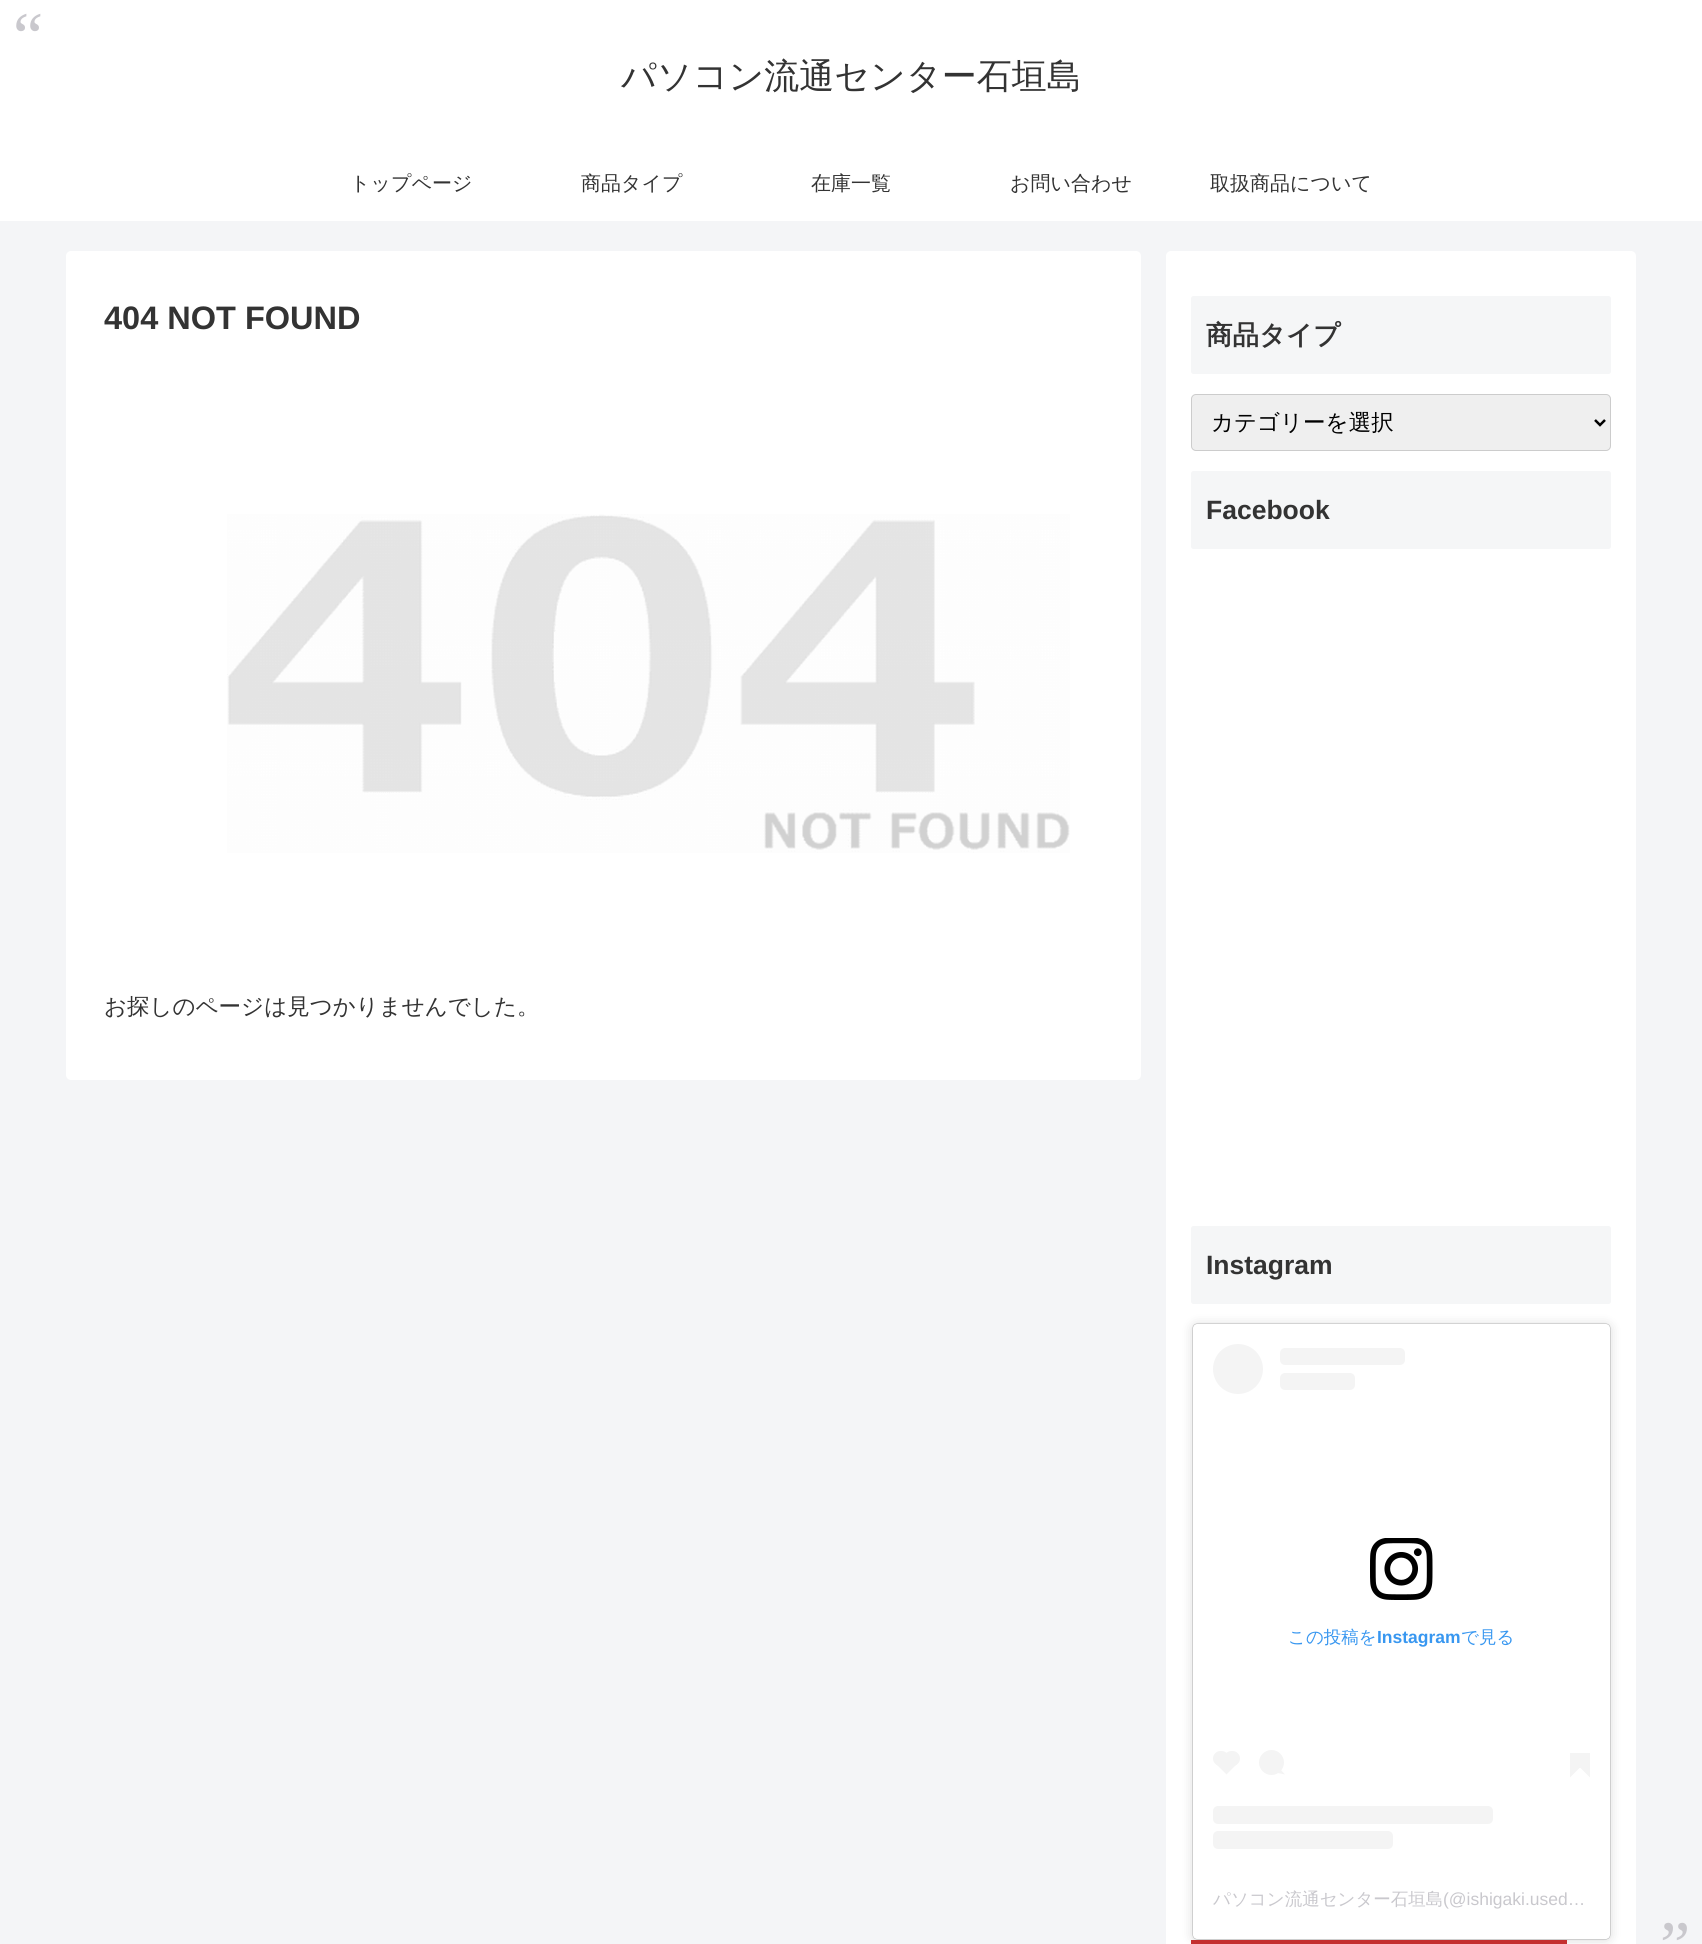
#include <cairo.h>
#include <math.h>
#include <stddef.h>


static void set_color(cairo_t *cr, unsigned color) {
    cairo_set_source_rgb(cr, (color >> 16) / 255.0, (color >> 8 & 255) / 255.0, (color & 255) / 255.0);
}

static void draw_text(cairo_t *cr, double x, double y, const char *s, const char *family, double size, int italic, int bold, unsigned color) {
    cairo_select_font_face(cr, family, italic ? CAIRO_FONT_SLANT_ITALIC : CAIRO_FONT_SLANT_NORMAL,
        bold ? CAIRO_FONT_WEIGHT_BOLD : CAIRO_FONT_WEIGHT_NORMAL);
    cairo_set_font_size(cr, size);
    set_color(cr, color);
    cairo_move_to(cr, x, y);
    cairo_show_text(cr, s);
}

static void fill_rect(cairo_t *cr, double x, double y, double w, double h, unsigned color) {
    set_color(cr, color);
    cairo_rectangle(cr, x, y, w, h);
    cairo_fill(cr);
}

static void rounded_rect(cairo_t *cr, double x, double y, double w, double h, double r) {
    cairo_new_sub_path(cr);
    cairo_arc(cr, x + w - r, y + h - r, r, 0, M_PI / 2);
    cairo_arc(cr, x + r, y + h - r, r, M_PI / 2, M_PI);
    cairo_arc(cr, x + r, y + r, r, M_PI, 1.5 * M_PI);
    cairo_arc(cr, x + w - r, y + r, r, 1.5 * M_PI, 2 * M_PI);
    cairo_close_path(cr);
}

static void draw_shadow(cairo_t *cr, double x, double y, double w, double h, double r, double blur, double alpha) {
    cairo_push_group_with_content(cr, CAIRO_CONTENT_ALPHA);
    cairo_set_operator(cr, CAIRO_OPERATOR_SOURCE);
    for (int i = 15; i >= -15 && fmin(w, h) + blur * i / 3 > 0; i -= 2) {
        double e = blur * i / 6;
        cairo_set_source_rgba(cr, 0, 0, 0, alpha * erfc((i - 1) / 8.5) / 2);
        rounded_rect(cr, x - e, y - e, w + 2 * e, h + 2 * e, fmax(0, fmin(r + e + blur * .6, fmin(w, h) / 2 + e)));
        cairo_fill(cr);
    }
    cairo_pattern_t *soft = cairo_pop_group(cr);
    cairo_mask(cr, soft);
    cairo_pattern_destroy(soft);
}

static void draw_image(cairo_t *cr, const char *path, double x, double y, double w, double h) {
    cairo_surface_t *image = cairo_image_surface_create_from_png(path);
    cairo_save(cr);
    cairo_set_source_surface(cr, image, x, y);
    cairo_rectangle(cr, x, y, w, h);
    cairo_fill(cr);
    cairo_restore(cr);
    cairo_surface_destroy(image);
}

int main(void) {
    cairo_surface_t *surface = cairo_image_surface_create(CAIRO_FORMAT_RGB24, 1702, 1944);
    cairo_t *cr = cairo_create(surface);
    cairo_font_options_t *options = cairo_font_options_create();
    cairo_font_options_set_hint_metrics(options, CAIRO_HINT_METRICS_OFF);
    cairo_font_options_set_hint_style(options, CAIRO_HINT_STYLE_NONE);
    cairo_set_font_options(cr, options);
    cairo_set_miter_limit(cr, 4);
    set_color(cr, 0xF4F5F7);
    cairo_paint(cr);
    set_color(cr, 0xFFFFFF);
    rounded_rect(cr, 1166, 251, 470, 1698, 5);
    cairo_fill(cr);
    set_color(cr, 0x000000);
    draw_shadow(cr, 1193, 1325, 417, 615, 4, 6, 0.15);
    draw_shadow(cr, 1193, 1324, 417, 615, 4, 0.5, 0.5);
    set_color(cr, 0xFFFFFF);
    rounded_rect(cr, 1193, 1324, 417, 615, 4);
    cairo_fill(cr);
    fill_rect(cr, 0, 0, 1702, 221, 0xFFFFFF);
    draw_text(cr, 13, 59, "“", "Liberation Serif", 68, 0, 0, 0xC9C8CD);
    set_color(cr, 0xF4F4F4);
    cairo_new_path(cr);
    cairo_arc(cr, 1238, 1369, 25, 0, 2 * M_PI);
    cairo_fill(cr);
    rounded_rect(cr, 1280, 1348, 125, 17, 5);
    cairo_fill(cr);
    rounded_rect(cr, 1280, 1373, 75, 17, 5);
    cairo_fill(cr);
    draw_image(cr, "assets/img1.png", 1370, 1538, 63, 62);
    draw_text(cr, 1288, 1643, "この投稿を", "WenQuanYi Zen Hei Medium", 17.5, 0, 0, 0x3897F0);
    draw_text(cr, 1377, 1643, "Instagram", "Liberation Sans", 17.5, 0, 1, 0x3897F0);
    draw_text(cr, 1461, 1643, "で見る", "WenQuanYi Zen Hei Medium", 17.5, 0, 0, 0x3897F0);
    set_color(cr, 0xF4F4F4);
    rounded_rect(cr, 1213, 1751, 16, 15, 7.5);
    cairo_fill(cr);
    cairo_new_path(cr);
    cairo_move_to(cr, 1215.5, 1763.5);
    cairo_line_to(cr, 1226.5, 1752.5);
    cairo_line_to(cr, 1237.5, 1763.5);
    cairo_line_to(cr, 1226.5, 1774.5);
    cairo_close_path(cr);
    cairo_fill(cr);
    rounded_rect(cr, 1224, 1751, 16, 15, 7.5);
    cairo_fill(cr);
    cairo_arc(cr, 1271.5, 1762.5, 12.5, 0, 2 * M_PI);
    cairo_fill(cr);
    cairo_new_path(cr);
    cairo_move_to(cr, 1277.5, 1773);
    cairo_line_to(cr, 1280, 1769);
    cairo_line_to(cr, 1285, 1774.5);
    cairo_close_path(cr);
    cairo_fill(cr);
    cairo_new_path(cr);
    cairo_move_to(cr, 1570, 1767.5);
    cairo_line_to(cr, 1580, 1767.5);
    cairo_line_to(cr, 1570, 1777.5);
    cairo_close_path(cr);
    cairo_fill(cr);
    fill_rect(cr, 1570, 1753, 20, 15, 0xF4F4F4);
    cairo_new_path(cr);
    cairo_move_to(cr, 1580, 1767.5);
    cairo_line_to(cr, 1590, 1767.5);
    cairo_line_to(cr, 1590, 1777.5);
    cairo_close_path(cr);
    cairo_fill(cr);
    rounded_rect(cr, 1213, 1806, 280, 18, 5);
    cairo_fill(cr);
    rounded_rect(cr, 1213, 1831, 180, 18, 5);
    cairo_fill(cr);
    draw_text(cr, 1213, 1905, "パソコン流通センター石垣島", "WenQuanYi Zen Hei Medium", 17.5, 0, 0, 0xC9C8CD);
    draw_text(cr, 1443, 1905, "(@ishigaki.used…", "Liberation Sans", 17.5, 0, 0, 0xC9C8CD);
    draw_text(cr, 1660, 1968, "”", "Liberation Serif", 68, 0, 0, 0xC9C8CD);
    set_color(cr, 0xF5F6F7);
    rounded_rect(cr, 1191, 1226, 420, 78, 2.5);
    cairo_fill(cr);
    draw_text(cr, 1206, 1274, "Instagram", "Liberation Sans", 26.5, 0, 1, 0x333333);
    set_color(cr, 0xF5F6F7);
    rounded_rect(cr, 1191, 296, 420, 78, 2.5);
    cairo_fill(cr);
    draw_text(cr, 1206, 344, "商品タイプ", "WenQuanYi Zen Hei", 26.5, 0, 1, 0x333333);
    set_color(cr, 0xEFEFEF);
    rounded_rect(cr, 1191.5, 394.5, 419, 56, 4.5);
    cairo_fill_preserve(cr);
    set_color(cr, 0xCCCCCC);
    cairo_set_line_width(cr, 1);
    cairo_stroke(cr);
    cairo_new_path(cr);
    cairo_move_to(cr, 1595, 420);
    cairo_line_to(cr, 1600, 425);
    cairo_line_to(cr, 1605, 420);
    set_color(cr, 0x000000);
    cairo_set_line_width(cr, 2.5);
    cairo_stroke(cr);
    draw_text(cr, 1211, 430, "カテゴリーを選択", "WenQuanYi Zen Hei Medium", 22.5, 0, 0, 0x000000);
    set_color(cr, 0xF5F6F7);
    rounded_rect(cr, 1191, 471, 420, 78, 2.5);
    cairo_fill(cr);
    draw_text(cr, 1206, 519, "Facebook", "Liberation Sans", 26.5, 0, 1, 0x333333);
    fill_rect(cr, 1191, 1940, 376, 4, 0xC42F2F);
    set_color(cr, 0xFFFFFF);
    rounded_rect(cr, 66, 251, 1075, 829, 5);
    cairo_fill(cr);
    draw_text(cr, 104, 329, "404 NOT FOUND", "Liberation Sans", 32.5, 0, 1, 0x333333);
    draw_image(cr, "assets/img2.png", 227, 514, 843, 339);
    draw_text(cr, 104, 1014, "お探しのページは見つかりませんでした。", "WenQuanYi Zen Hei Medium", 22.5, 0, 0, 0x333333);
    draw_text(cr, 621, 88, "パソコン流通センター石垣島", "WenQuanYi Zen Hei Medium", 35, 0, 0, 0x333333);
    draw_text(cr, 350, 190, "トップページ", "WenQuanYi Zen Hei Medium", 20, 0, 0, 0x333333);
    draw_text(cr, 581, 190, "商品タイプ", "WenQuanYi Zen Hei Medium", 20, 0, 0, 0x333333);
    draw_text(cr, 811, 190, "在庫一覧", "WenQuanYi Zen Hei Medium", 20, 0, 0, 0x333333);
    draw_text(cr, 1010, 190, "お問い合わせ", "WenQuanYi Zen Hei Medium", 20, 0, 0, 0x333333);
    draw_text(cr, 1210, 190, "取扱商品について", "WenQuanYi Zen Hei Medium", 20, 0, 0, 0x333333);
    cairo_surface_write_to_png(surface, "output.png");
    cairo_font_options_destroy(options);
    cairo_destroy(cr);
    cairo_surface_destroy(surface);
    return 0;
}
